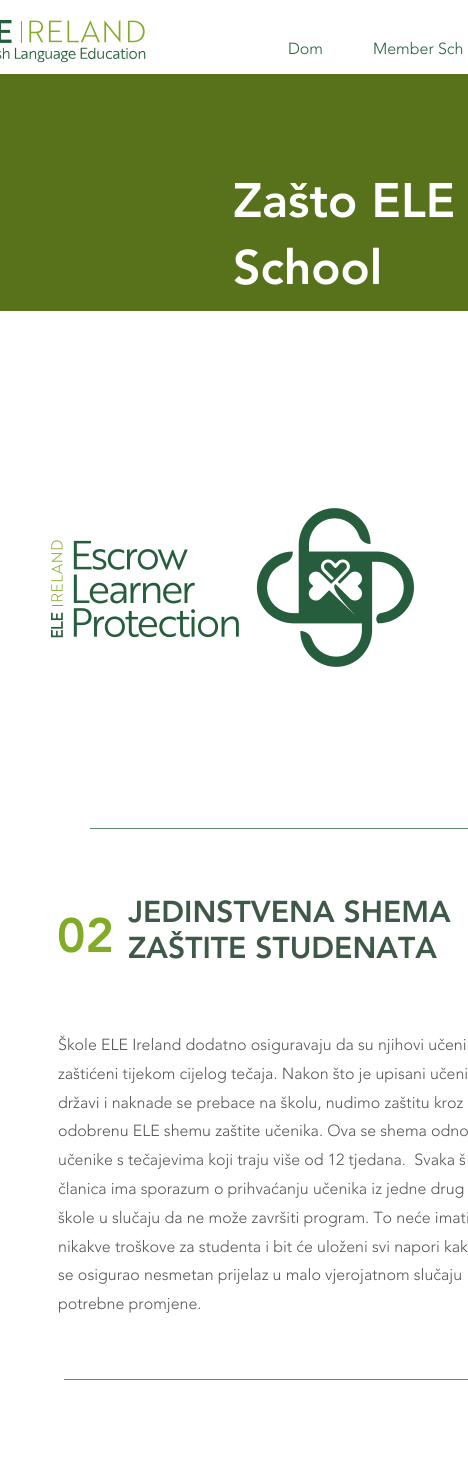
#include <cairo.h>
#include <math.h>
#include <stddef.h>


static void set_color(cairo_t *cr, unsigned color) {
    cairo_set_source_rgb(cr, (color >> 16) / 255.0, (color >> 8 & 255) / 255.0, (color & 255) / 255.0);
}

static void draw_text(cairo_t *cr, double x, double y, const char *s, const char *family, double size, int italic, int bold, unsigned color) {
    cairo_select_font_face(cr, family, italic ? CAIRO_FONT_SLANT_ITALIC : CAIRO_FONT_SLANT_NORMAL,
        bold ? CAIRO_FONT_WEIGHT_BOLD : CAIRO_FONT_WEIGHT_NORMAL);
    cairo_set_font_size(cr, size);
    set_color(cr, color);
    cairo_move_to(cr, x, y);
    cairo_show_text(cr, s);
}

static void fill_rect(cairo_t *cr, double x, double y, double w, double h, unsigned color) {
    set_color(cr, color);
    cairo_rectangle(cr, x, y, w, h);
    cairo_fill(cr);
}

static void draw_image(cairo_t *cr, const char *path, double x, double y, double w, double h) {
    cairo_surface_t *image = cairo_image_surface_create_from_png(path);
    cairo_save(cr);
    cairo_set_source_surface(cr, image, x, y);
    cairo_rectangle(cr, x, y, w, h);
    cairo_fill(cr);
    cairo_restore(cr);
    cairo_surface_destroy(image);
}

int main(void) {
    cairo_surface_t *surface = cairo_image_surface_create(CAIRO_FORMAT_RGB24, 468, 1464);
    cairo_t *cr = cairo_create(surface);
    cairo_font_options_t *options = cairo_font_options_create();
    cairo_font_options_set_hint_metrics(options, CAIRO_HINT_METRICS_OFF);
    cairo_font_options_set_hint_style(options, CAIRO_HINT_STYLE_NONE);
    cairo_set_font_options(cr, options);
    cairo_set_miter_limit(cr, 4);
    set_color(cr, 0xFFFFFF);
    cairo_paint(cr);
    draw_image(cr, "assets/img1.png", 0, 20, 146, 43);
    draw_text(cr, 288, 54, "Dom", "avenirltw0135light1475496 Light", 16, 0, 0, 0x265D3C);
    draw_text(cr, 373, 54, "Member Sch", "avenirltw0135light1475496 Light", 16, 0, 0, 0x265D3C);
    fill_rect(cr, 0, 74, 468, 237, 0x57721B);
    draw_text(cr, 233, 217, "Zašto ELE", "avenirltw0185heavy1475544 Black", 48, 0, 0, 0xFFFFFF);
    draw_text(cr, 233, 284, "School", "avenirltw0185heavy1475544 Black", 48, 0, 0, 0xFFFFFF);
    draw_image(cr, "assets/img2.png", 51, 508, 363, 159);
    fill_rect(cr, 90, 828, 378, 1, 0x5E866E);
    draw_text(cr, 57, 952, "02", "avenirltw0185heavy1475544 Black", 48, 0, 0, 0x82AB29);
    draw_text(cr, 128, 922, "JEDINSTVENA SHEMA", "avenirltw0185heavy1475544 Black", 30, 0, 0, 0x3F5949);
    draw_text(cr, 128, 958, "ZAŠTITE STUDENATA", "avenirltw0185heavy1475544 Black", 30, 0, 0, 0x3F5949);
    draw_text(cr, 58, 1050, "Škole ELE Ireland dodatno osiguravaju da su njihovi učeni", "avenirltw0135light1475496 Light", 16, 0, 0, 0x555555);
    draw_text(cr, 58, 1079, "zaštićeni tijekom cijelog tečaja. Nakon što je upisani učeni", "avenirltw0135light1475496 Light", 16, 0, 0, 0x555555);
    draw_text(cr, 58, 1108, "državi i naknade se prebace na školu, nudimo zaštitu kroz", "avenirltw0135light1475496 Light", 16, 0, 0, 0x555555);
    draw_text(cr, 58, 1136, "odobrenu ELE shemu zaštite učenika. Ova se shema odno", "avenirltw0135light1475496 Light", 16, 0, 0, 0x555555);
    draw_text(cr, 58, 1165, "učenike s tečajevima koji traju više od 12 tjedana.  Svaka š", "avenirltw0135light1475496 Light", 16, 0, 0, 0x555555);
    draw_text(cr, 58, 1194, "članica ima sporazum o prihvaćanju učenika iz jedne drug", "avenirltw0135light1475496 Light", 16, 0, 0, 0x555555);
    draw_text(cr, 58, 1223, "škole u slučaju da ne može završiti program. To neće imati", "avenirltw0135light1475496 Light", 16, 0, 0, 0x555555);
    draw_text(cr, 58, 1252, "nikakve troškove za studenta i bit će uloženi svi napori kak", "avenirltw0135light1475496 Light", 16, 0, 0, 0x555555);
    draw_text(cr, 58, 1280, "se osigurao nesmetan prijelaz u malo vjerojatnom slučaju", "avenirltw0135light1475496 Light", 16, 0, 0, 0x555555);
    draw_text(cr, 58, 1309, "potrebne promjene.", "avenirltw0135light1475496 Light", 16, 0, 0, 0x555555);
    fill_rect(cr, 64, 1379, 404, 1, 0x5E866E);
    cairo_surface_write_to_png(surface, "output.png");
    cairo_font_options_destroy(options);
    cairo_destroy(cr);
    cairo_surface_destroy(surface);
    return 0;
}
